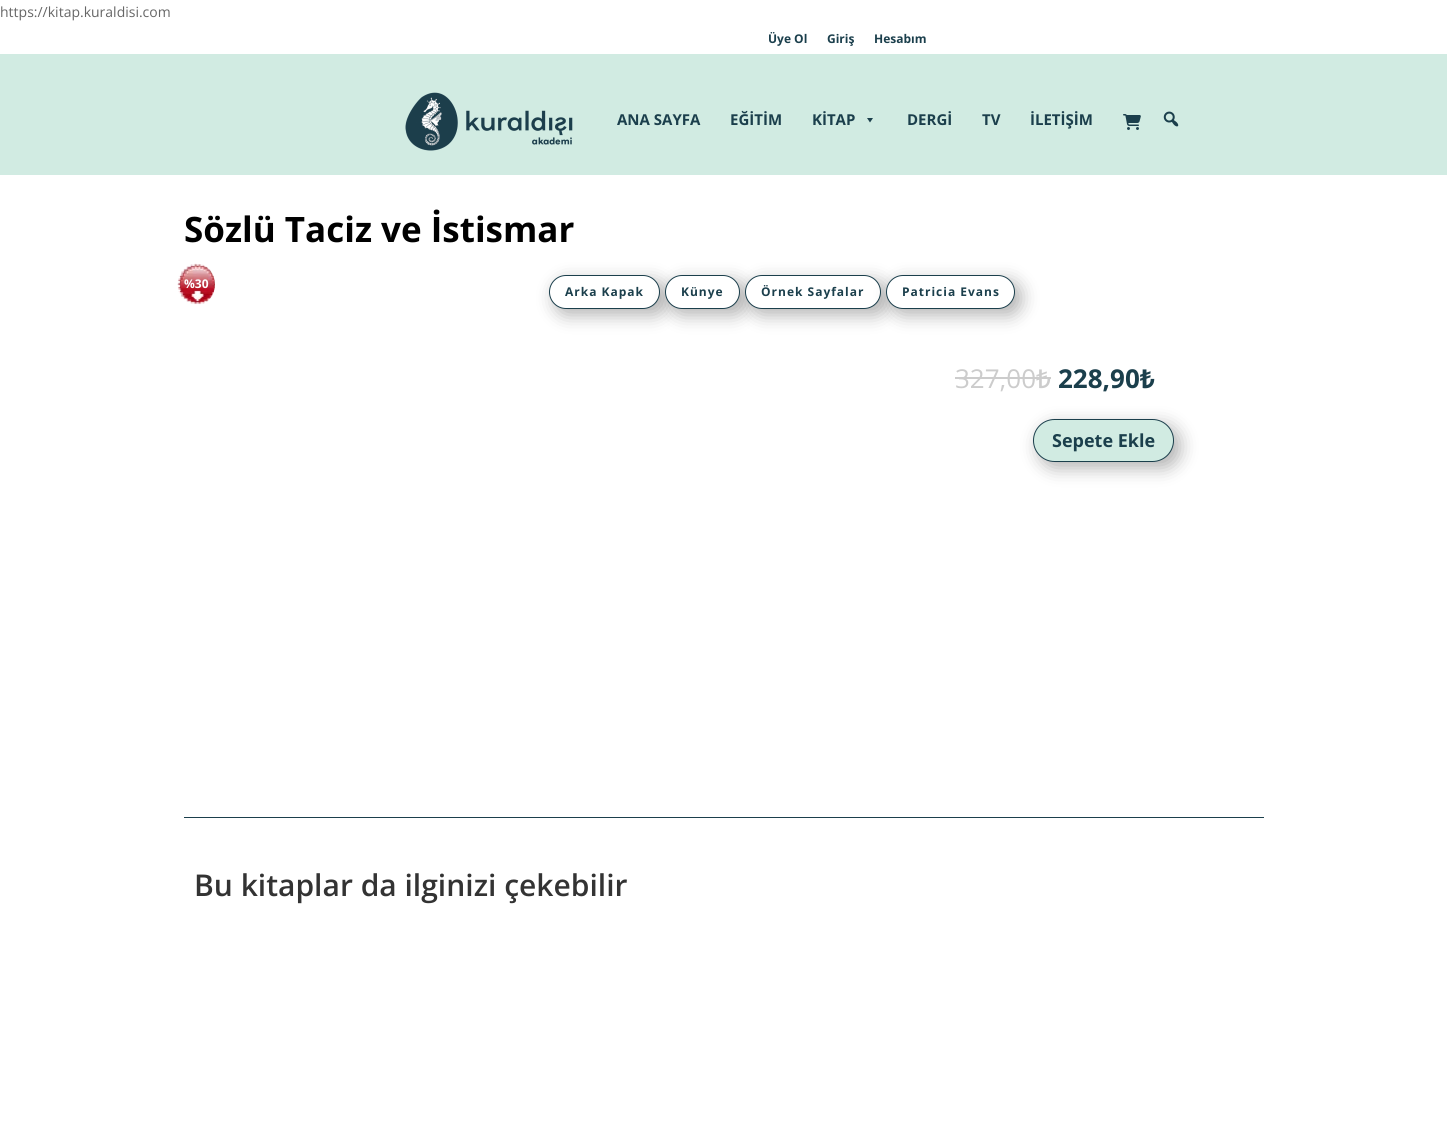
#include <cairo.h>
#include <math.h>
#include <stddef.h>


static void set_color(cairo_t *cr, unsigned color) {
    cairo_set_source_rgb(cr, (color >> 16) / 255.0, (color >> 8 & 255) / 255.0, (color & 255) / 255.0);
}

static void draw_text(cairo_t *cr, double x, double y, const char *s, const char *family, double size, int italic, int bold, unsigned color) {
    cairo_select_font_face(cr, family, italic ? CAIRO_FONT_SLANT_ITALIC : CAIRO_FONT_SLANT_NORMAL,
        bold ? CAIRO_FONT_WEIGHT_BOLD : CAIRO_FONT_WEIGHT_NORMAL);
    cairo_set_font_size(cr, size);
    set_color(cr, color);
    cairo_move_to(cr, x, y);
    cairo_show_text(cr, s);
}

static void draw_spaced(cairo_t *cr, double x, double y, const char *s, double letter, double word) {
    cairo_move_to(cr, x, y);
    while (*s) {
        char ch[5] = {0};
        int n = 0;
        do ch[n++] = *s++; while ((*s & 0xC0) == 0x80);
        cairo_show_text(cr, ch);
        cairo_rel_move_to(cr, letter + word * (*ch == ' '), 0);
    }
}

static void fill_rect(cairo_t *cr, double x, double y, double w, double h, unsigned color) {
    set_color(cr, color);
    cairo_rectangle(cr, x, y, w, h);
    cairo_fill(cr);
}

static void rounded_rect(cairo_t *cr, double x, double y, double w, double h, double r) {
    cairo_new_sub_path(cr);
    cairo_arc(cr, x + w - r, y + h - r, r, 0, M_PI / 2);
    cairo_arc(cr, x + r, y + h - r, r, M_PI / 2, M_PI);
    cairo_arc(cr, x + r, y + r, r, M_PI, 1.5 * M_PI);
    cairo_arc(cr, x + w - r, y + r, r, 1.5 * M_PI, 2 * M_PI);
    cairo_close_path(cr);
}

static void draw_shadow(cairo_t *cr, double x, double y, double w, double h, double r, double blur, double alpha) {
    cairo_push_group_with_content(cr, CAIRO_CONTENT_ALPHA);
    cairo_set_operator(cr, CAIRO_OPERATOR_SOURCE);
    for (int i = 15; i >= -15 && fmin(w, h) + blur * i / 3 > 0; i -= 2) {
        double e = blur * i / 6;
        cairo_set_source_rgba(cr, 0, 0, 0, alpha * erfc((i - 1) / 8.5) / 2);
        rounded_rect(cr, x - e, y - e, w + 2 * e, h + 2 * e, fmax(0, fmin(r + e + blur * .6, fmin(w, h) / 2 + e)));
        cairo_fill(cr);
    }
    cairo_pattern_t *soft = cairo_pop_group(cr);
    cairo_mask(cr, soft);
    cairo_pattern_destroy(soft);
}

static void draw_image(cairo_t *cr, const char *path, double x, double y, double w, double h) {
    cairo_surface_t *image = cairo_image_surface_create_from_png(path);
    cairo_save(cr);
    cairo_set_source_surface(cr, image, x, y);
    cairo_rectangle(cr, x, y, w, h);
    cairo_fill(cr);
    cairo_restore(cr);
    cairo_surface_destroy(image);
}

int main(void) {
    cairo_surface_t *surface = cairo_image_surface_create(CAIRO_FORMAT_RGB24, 1447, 1143);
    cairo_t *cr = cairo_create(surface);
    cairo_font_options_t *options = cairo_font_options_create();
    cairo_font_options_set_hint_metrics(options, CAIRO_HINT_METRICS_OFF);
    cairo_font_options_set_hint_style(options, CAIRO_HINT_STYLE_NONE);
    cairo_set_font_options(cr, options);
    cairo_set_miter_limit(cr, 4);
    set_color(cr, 0xFFFFFF);
    cairo_paint(cr);
    draw_text(cr, 0, 17, "https://kitap.kuraldisi.com", "Open Sans", 14, 0, 0, 0x666666);
    draw_text(cr, 768, 43, "Üye Ol", "Open Sans", 12, 0, 1, 0x1B3F4C);
    draw_text(cr, 827, 43, "Giriş", "Open Sans", 12, 0, 1, 0x1B3F4C);
    draw_text(cr, 874, 43, "Hesabım", "Open Sans", 12, 0, 1, 0x1B3F4C);
    fill_rect(cr, 0, 54, 1447, 121, 0xD1EBE2);
    draw_image(cr, "assets/img1.png", 405, 92, 168, 59);
    draw_text(cr, 617, 125, "ANA SAYFA", "Open Sans", 15, 0, 1, 0x1B3F4C);
    draw_text(cr, 730, 125, "EĞİTİM", "Open Sans", 15, 0, 1, 0x1B3F4C);
    draw_text(cr, 812, 125, "KİTAP", "Open Sans", 15, 0, 1, 0x1B3F4C);
    cairo_new_path(cr);
    cairo_move_to(cr, 873, 118);
    cairo_line_to(cr, 870, 122.5);
    cairo_line_to(cr, 867, 118);
    cairo_close_path(cr);
    cairo_fill(cr);
    draw_text(cr, 907, 125, "DERGİ", "Open Sans", 15, 0, 1, 0x1B3F4C);
    draw_text(cr, 982, 125, "TV", "Open Sans", 15, 0, 1, 0x1B3F4C);
    draw_text(cr, 1030, 125, "İLETİŞİM", "Open Sans", 15, 0, 1, 0x1B3F4C);
    draw_image(cr, "assets/img2.png", 1123, 114, 18, 16);
    draw_image(cr, "assets/img3.png", 1163, 111, 16, 16);
    draw_text(cr, 184, 242, "Sözlü Taciz ve İstismar", "Open Sans", 35, 0, 1, 0x000000);
    draw_image(cr, "assets/img4.png", 177, 263, 38, 42);
    draw_text(cr, 184, 288, "%30", "Open Sans", 12, 0, 1, 0xFFFFFF);
    set_color(cr, 0x000000);
    draw_shadow(cr, 555, 281, 111, 34, 17, 9, 0.3);
    set_color(cr, 0xFFFFFF);
    rounded_rect(cr, 549.5, 275.5, 110, 33, 16.5);
    cairo_fill_preserve(cr);
    set_color(cr, 0x1B3F4C);
    cairo_set_line_width(cr, 1);
    cairo_stroke(cr);
    draw_spaced(cr, 565, 296, "Arka Kapak", 1, 0);
    set_color(cr, 0x000000);
    draw_shadow(cr, 671, 281, 75, 34, 17, 9, 0.3);
    set_color(cr, 0xFFFFFF);
    rounded_rect(cr, 665.5, 275.5, 74, 33, 16.5);
    cairo_fill_preserve(cr);
    set_color(cr, 0x1B3F4C);
    cairo_stroke(cr);
    draw_spaced(cr, 681, 296, "Künye", 1, 0);
    set_color(cr, 0x000000);
    draw_shadow(cr, 751, 281, 136, 34, 17, 9, 0.3);
    set_color(cr, 0xFFFFFF);
    rounded_rect(cr, 745.5, 275.5, 135, 33, 16.5);
    cairo_fill_preserve(cr);
    set_color(cr, 0x1B3F4C);
    cairo_stroke(cr);
    draw_spaced(cr, 761, 296, "Örnek Sayfalar", 1, 0);
    set_color(cr, 0x000000);
    draw_shadow(cr, 892, 281, 129, 34, 17, 9, 0.3);
    set_color(cr, 0xFFFFFF);
    rounded_rect(cr, 886.5, 275.5, 128, 33, 16.5);
    cairo_fill_preserve(cr);
    set_color(cr, 0x1B3F4C);
    cairo_stroke(cr);
    draw_spaced(cr, 902, 296, "Patricia Evans", 1, 0);
    draw_text(cr, 955, 388, "327,00", "Open Sans", 26, 0, 0, 0xCCCCCC);
    draw_text(cr, 1036, 388, "₺", "Noto Sans Medium", 26, 0, 0, 0xCCCCCC);
    fill_rect(cr, 955, 377, 81, 2, 0xCCCCCC);
    fill_rect(cr, 1036, 377, 15, 2, 0xCCCCCC);
    draw_text(cr, 1058, 388, "228,90", "Open Sans", 26, 0, 1, 0x1B3F4C);
    draw_text(cr, 1140, 388, "₺", "Noto Sans", 26, 0, 1, 0x1B3F4C);
    set_color(cr, 0x000000);
    draw_shadow(cr, 1039, 425, 141, 43, 21.5, 9, 0.3);
    set_color(cr, 0xD1EBE2);
    rounded_rect(cr, 1033.5, 419.5, 140, 42, 21);
    cairo_fill_preserve(cr);
    set_color(cr, 0x1B3F4C);
    cairo_stroke(cr);
    draw_text(cr, 1052, 447, "Sepete Ekle", "Open Sans", 18, 0, 1, 0x1B3F4C);
    fill_rect(cr, 184, 817, 1080, 1, 0x1B3F4C);
    draw_text(cr, 194, 896, "Bu kitaplar da ilginizi çekebilir", "Open Sans SemiBold", 30, 0, 0, 0x333333);
    cairo_surface_write_to_png(surface, "output.png");
    cairo_font_options_destroy(options);
    cairo_destroy(cr);
    cairo_surface_destroy(surface);
    return 0;
}
